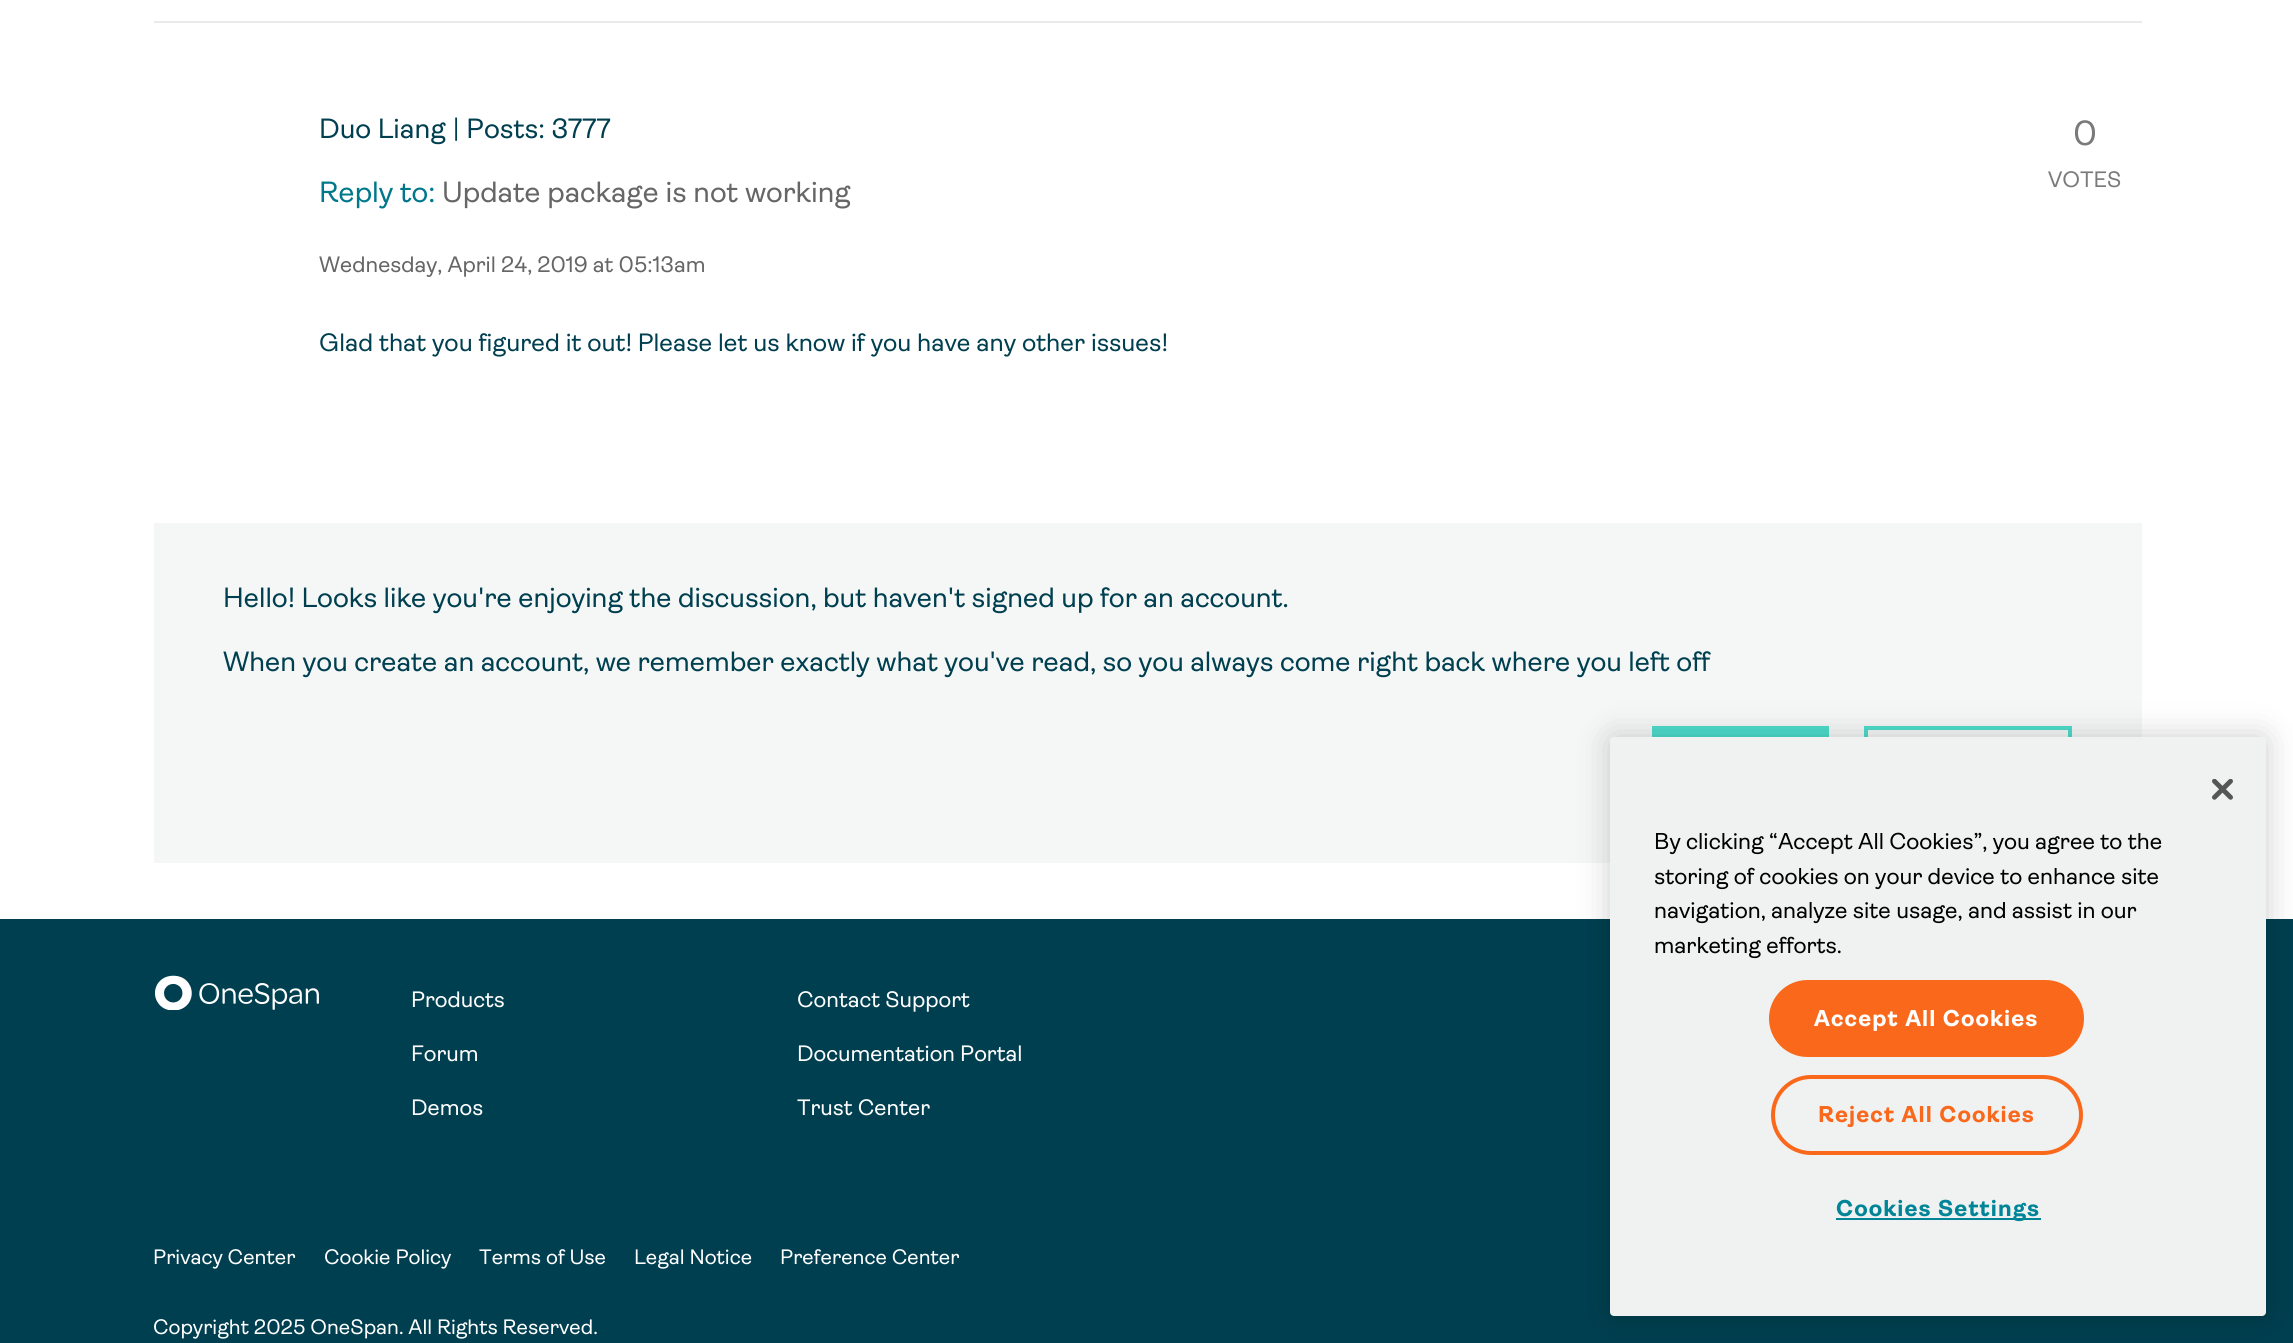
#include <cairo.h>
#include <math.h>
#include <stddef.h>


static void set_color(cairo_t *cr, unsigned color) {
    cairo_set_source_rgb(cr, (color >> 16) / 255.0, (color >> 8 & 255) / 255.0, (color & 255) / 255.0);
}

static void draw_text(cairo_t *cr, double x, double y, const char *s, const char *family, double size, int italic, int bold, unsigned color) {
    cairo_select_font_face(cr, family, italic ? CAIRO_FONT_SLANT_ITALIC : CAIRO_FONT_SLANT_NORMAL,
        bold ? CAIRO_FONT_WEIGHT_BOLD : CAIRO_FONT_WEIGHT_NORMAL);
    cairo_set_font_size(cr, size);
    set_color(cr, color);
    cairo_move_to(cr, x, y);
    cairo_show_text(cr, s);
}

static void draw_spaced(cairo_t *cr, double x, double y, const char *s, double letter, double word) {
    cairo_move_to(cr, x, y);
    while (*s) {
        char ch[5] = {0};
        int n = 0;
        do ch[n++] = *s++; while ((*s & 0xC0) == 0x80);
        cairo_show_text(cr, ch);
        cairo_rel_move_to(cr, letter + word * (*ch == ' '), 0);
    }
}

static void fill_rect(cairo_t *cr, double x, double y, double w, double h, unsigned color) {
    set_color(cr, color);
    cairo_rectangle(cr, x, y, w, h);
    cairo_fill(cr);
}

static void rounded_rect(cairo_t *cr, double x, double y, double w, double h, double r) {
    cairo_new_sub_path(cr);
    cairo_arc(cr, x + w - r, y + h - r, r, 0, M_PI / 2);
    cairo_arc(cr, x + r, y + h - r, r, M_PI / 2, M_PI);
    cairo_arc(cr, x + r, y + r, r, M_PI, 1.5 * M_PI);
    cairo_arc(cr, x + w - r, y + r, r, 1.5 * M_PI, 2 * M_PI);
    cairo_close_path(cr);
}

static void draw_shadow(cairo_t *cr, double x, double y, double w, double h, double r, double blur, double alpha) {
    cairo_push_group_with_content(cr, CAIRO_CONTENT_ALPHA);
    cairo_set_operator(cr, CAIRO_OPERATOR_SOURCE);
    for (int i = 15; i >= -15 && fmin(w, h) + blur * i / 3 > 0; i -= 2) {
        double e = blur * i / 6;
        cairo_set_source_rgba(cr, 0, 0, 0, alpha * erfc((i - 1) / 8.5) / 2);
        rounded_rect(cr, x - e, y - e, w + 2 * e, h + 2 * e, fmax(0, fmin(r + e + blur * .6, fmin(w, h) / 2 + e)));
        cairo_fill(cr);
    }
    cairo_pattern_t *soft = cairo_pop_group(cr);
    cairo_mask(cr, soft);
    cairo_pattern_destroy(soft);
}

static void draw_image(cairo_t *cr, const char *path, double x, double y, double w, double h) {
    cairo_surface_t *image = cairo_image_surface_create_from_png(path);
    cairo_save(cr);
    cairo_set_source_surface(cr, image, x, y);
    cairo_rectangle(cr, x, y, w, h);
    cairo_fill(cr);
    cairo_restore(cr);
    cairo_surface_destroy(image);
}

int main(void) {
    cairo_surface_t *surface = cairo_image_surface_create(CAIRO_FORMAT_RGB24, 2293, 1343);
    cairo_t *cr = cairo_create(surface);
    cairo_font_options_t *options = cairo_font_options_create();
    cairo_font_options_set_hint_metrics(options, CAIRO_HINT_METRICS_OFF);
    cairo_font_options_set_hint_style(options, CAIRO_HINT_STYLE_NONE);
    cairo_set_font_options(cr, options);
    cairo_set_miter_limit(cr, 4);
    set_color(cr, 0xFFFFFF);
    cairo_paint(cr);
    fill_rect(cr, 154, 21, 1988, 2, 0xEAEAEA);
    draw_text(cr, 319, 138, "Duo Liang | Posts: 3777", "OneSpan", 28, 0, 0, 0x003F50);
    draw_text(cr, 319, 202, "Reply to:", "OneSpan", 29.4, 0, 0, 0x00788C);
    draw_text(cr, 442, 202, "Update package is not working", "OneSpan", 29.4, 0, 0, 0x666666);
    draw_text(cr, 319, 272, "Wednesday, April 24, 2019 at 05:13am", "OneSpan", 22.4, 0, 0, 0x666666);
    draw_text(cr, 2073, 145, "0", "OneSpan", 35, 0, 0, 0x7A7A7A);
    draw_text(cr, 2048, 187, "VOTES", "OneSpan", 22.4, 0, 0, 0x7A7A7A);
    draw_text(cr, 319, 351, "Glad that you figured it out! Please let us know if you have any other issues!", "OneSpan", 25.2, 0, 0, 0x003F50);
    fill_rect(cr, 154, 523, 1988, 340, 0xF5F7F6);
    draw_text(cr, 223, 607, "Hello! Looks like you're enjoying the discussion, but haven't signed up for an account.", "OneSpan", 28, 0, 0, 0x003F50);
    draw_text(cr, 223, 671, "When you create an account, we remember exactly what you've read, so you always come right back where you left off", "OneSpan", 28, 0, 0, 0x003F50);
    fill_rect(cr, 1652, 726, 177, 11, 0x4CDBCB);
    cairo_rectangle(cr, 1866, 728, 204, 80);
    cairo_set_line_width(cr, 4);
    cairo_stroke(cr);
    fill_rect(cr, 0, 919, 2293, 424, 0x003F50);
    draw_image(cr, "assets/img1.png", 155, 975, 164, 35);
    draw_text(cr, 411, 1007, "Products", "OneSpan", 22.4, 0, 0, 0xFFFFFF);
    draw_text(cr, 411, 1061, "Forum", "OneSpan", 22.4, 0, 0, 0xFFFFFF);
    draw_text(cr, 411, 1115, "Demos", "OneSpan", 22.4, 0, 0, 0xFFFFFF);
    draw_text(cr, 797, 1007, "Contact Support", "OneSpan", 22.4, 0, 0, 0xFFFFFF);
    draw_text(cr, 797, 1061, "Documentation Portal", "OneSpan", 22.4, 0, 0, 0xFFFFFF);
    draw_text(cr, 797, 1115, "Trust Center", "OneSpan", 22.4, 0, 0, 0xFFFFFF);
    draw_text(cr, 153, 1264, "Privacy Center", "OneSpan", 21, 0, 0, 0xFFFFFF);
    draw_text(cr, 324, 1264, "Cookie Policy", "OneSpan", 21, 0, 0, 0xFFFFFF);
    draw_text(cr, 479, 1264, "Terms of Use", "OneSpan", 21, 0, 0, 0xFFFFFF);
    draw_text(cr, 634, 1264, "Legal Notice", "OneSpan", 21, 0, 0, 0xFFFFFF);
    draw_text(cr, 780, 1264, "Preference Center", "OneSpan", 21, 0, 0, 0xFFFFFF);
    draw_text(cr, 153, 1334, "Copyright 2025 OneSpan. All Rights Reserved.", "OneSpan", 21, 0, 0, 0xFFFFFF);
    set_color(cr, 0x000000);
    draw_shadow(cr, 1610, 737, 656, 579, 4, 16, 0.2);
    set_color(cr, 0xF0F2F2);
    rounded_rect(cr, 1610, 737, 656, 579, 4);
    cairo_fill(cr);
    draw_image(cr, "assets/img2.png", 2212, 779, 21, 21);
    draw_text(cr, 1654, 849, "By clicking “Accept All Cookies”, you agree to the", "OneSpan", 23, 0, 0, 0x000000);
    draw_text(cr, 1654, 884, "storing of cookies on your device to enhance site", "OneSpan", 23, 0, 0, 0x000000);
    draw_text(cr, 1654, 918, "navigation, analyze site usage, and assist in our", "OneSpan", 23, 0, 0, 0x000000);
    draw_text(cr, 1654, 953, "marketing efforts.", "OneSpan", 23, 0, 0, 0x000000);
    set_color(cr, 0xF9681B);
    rounded_rect(cr, 1770, 981, 313, 75, 37.5);
    cairo_fill_preserve(cr);
    cairo_set_line_width(cr, 2);
    cairo_stroke(cr);
    cairo_select_font_face(cr, "OneSpan", CAIRO_FONT_SLANT_NORMAL, CAIRO_FONT_WEIGHT_BOLD);
    set_color(cr, 0xFFFFFF);
    draw_spaced(cr, 1814, 1026, "Accept All Cookies", 1.1, 0);
    rounded_rect(cr, 1773, 1077, 308, 76, 38);
    set_color(cr, 0xF9681B);
    cairo_set_line_width(cr, 4);
    cairo_stroke(cr);
    draw_spaced(cr, 1818, 1122, "Reject All Cookies", 1.1, 0);
    fill_rect(cr, 1836, 1218, 205, 2, 0x008598);
    draw_spaced(cr, 1836, 1216, "Cookies Settings", 1.1, 0);
    cairo_surface_write_to_png(surface, "output.png");
    cairo_font_options_destroy(options);
    cairo_destroy(cr);
    cairo_surface_destroy(surface);
    return 0;
}
